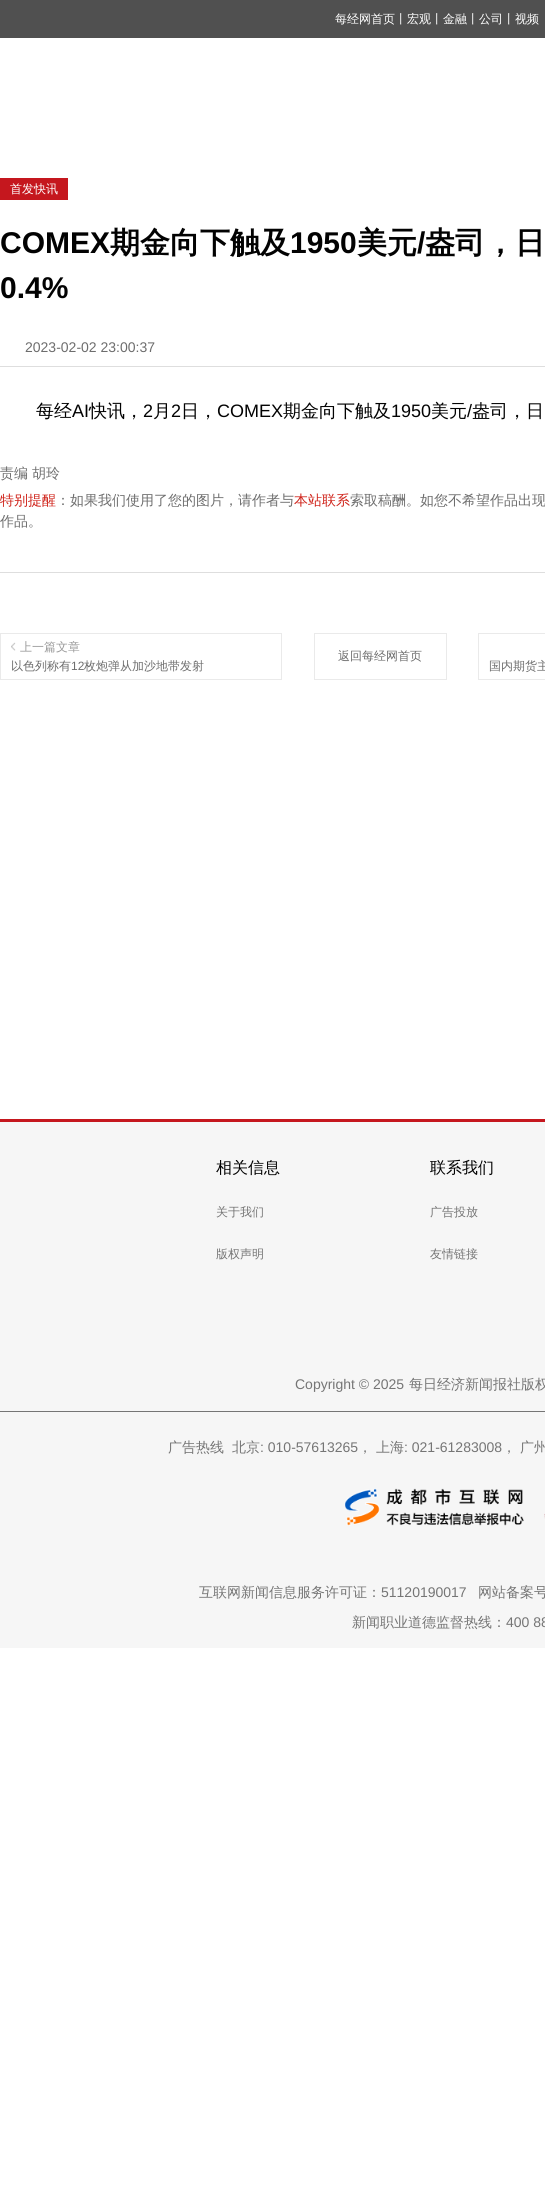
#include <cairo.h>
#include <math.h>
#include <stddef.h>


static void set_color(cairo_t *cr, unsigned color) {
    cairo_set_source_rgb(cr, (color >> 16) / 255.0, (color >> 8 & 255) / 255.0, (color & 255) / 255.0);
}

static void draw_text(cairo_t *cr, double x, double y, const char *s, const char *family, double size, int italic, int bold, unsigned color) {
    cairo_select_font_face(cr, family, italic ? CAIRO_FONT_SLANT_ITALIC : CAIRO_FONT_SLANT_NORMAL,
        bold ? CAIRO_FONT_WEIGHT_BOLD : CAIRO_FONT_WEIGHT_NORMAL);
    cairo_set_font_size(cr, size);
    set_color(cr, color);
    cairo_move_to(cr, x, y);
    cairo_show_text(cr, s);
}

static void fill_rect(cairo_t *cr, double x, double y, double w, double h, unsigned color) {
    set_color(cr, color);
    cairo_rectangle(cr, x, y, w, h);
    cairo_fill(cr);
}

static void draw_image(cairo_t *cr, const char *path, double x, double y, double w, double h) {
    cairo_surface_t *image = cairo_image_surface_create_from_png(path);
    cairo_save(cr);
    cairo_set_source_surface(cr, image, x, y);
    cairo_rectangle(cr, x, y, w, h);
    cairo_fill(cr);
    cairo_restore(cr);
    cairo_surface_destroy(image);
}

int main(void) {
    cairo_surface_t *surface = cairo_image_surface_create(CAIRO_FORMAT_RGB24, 545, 2189);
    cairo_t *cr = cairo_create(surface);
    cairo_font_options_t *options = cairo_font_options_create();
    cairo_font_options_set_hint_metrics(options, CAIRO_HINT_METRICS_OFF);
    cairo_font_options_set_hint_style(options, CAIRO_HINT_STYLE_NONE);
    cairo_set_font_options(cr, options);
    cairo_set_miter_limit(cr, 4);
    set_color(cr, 0xFFFFFF);
    cairo_paint(cr);
    fill_rect(cr, 0, 0, 545, 38, 0x505050);
    draw_text(cr, 335, 23, "每经网首页丨宏观丨金融丨公司丨视频", "WenQuanYi Zen Hei Medium", 12, 0, 0, 0xFFFFFF);
    fill_rect(cr, 0, 178, 68, 22, 0xC5171E);
    draw_text(cr, 10, 193, "首发快讯", "WenQuanYi Zen Hei Medium", 12, 0, 0, 0xFFFFFF);
    fill_rect(cr, 0, 366, 545, 1, 0xDEDEDE);
    draw_text(cr, 0, 253, "COMEX", "Liberation Sans", 30, 0, 1, 0x020202);
    draw_text(cr, 110, 253, "期金向下触及", "WenQuanYi Zen Hei", 30, 0, 1, 0x020202);
    draw_text(cr, 290, 253, "1950", "Liberation Sans", 30, 0, 1, 0x020202);
    draw_text(cr, 357, 253, "美元", "WenQuanYi Zen Hei", 30, 0, 1, 0x020202);
    draw_text(cr, 417, 253, "/", "Liberation Sans", 30, 0, 1, 0x020202);
    draw_text(cr, 425, 253, "盎司，日", "WenQuanYi Zen Hei", 30, 0, 1, 0x020202);
    draw_text(cr, 0, 298, "0.4%", "Liberation Sans", 30, 0, 1, 0x020202);
    draw_text(cr, 25, 352, "2023-02-02 23:00:37", "Liberation Sans", 14, 0, 0, 0x6D6D6D);
    draw_text(cr, 36, 417, "每经", "WenQuanYi Zen Hei Medium", 18, 0, 0, 0x020202);
    draw_text(cr, 72, 417, "AI", "Liberation Sans", 18, 0, 0, 0x020202);
    draw_text(cr, 89, 417, "快讯，", "WenQuanYi Zen Hei Medium", 18, 0, 0, 0x020202);
    draw_text(cr, 143, 417, "2", "Liberation Sans", 18, 0, 0, 0x020202);
    draw_text(cr, 153, 417, "月", "WenQuanYi Zen Hei Medium", 18, 0, 0, 0x020202);
    draw_text(cr, 171, 417, "2", "Liberation Sans", 18, 0, 0, 0x020202);
    draw_text(cr, 181, 417, "日，", "WenQuanYi Zen Hei Medium", 18, 0, 0, 0x020202);
    draw_text(cr, 217, 417, "COMEX", "Liberation Sans", 18, 0, 0, 0x020202);
    draw_text(cr, 283, 417, "期金向下触及", "WenQuanYi Zen Hei Medium", 18, 0, 0, 0x020202);
    draw_text(cr, 391, 417, "1950", "Liberation Sans", 18, 0, 0, 0x020202);
    draw_text(cr, 431, 417, "美元", "WenQuanYi Zen Hei Medium", 18, 0, 0, 0x020202);
    draw_text(cr, 467, 417, "/", "Liberation Sans", 18, 0, 0, 0x020202);
    draw_text(cr, 472, 417, "盎司，日", "WenQuanYi Zen Hei Medium", 18, 0, 0, 0x020202);
    draw_text(cr, 0, 478, "责编", "WenQuanYi Zen Hei Medium", 14, 0, 0, 0x6D6D6D);
    draw_text(cr, 32, 478, "胡玲", "WenQuanYi Zen Hei Medium", 14, 0, 0, 0x6D6D6D);
    draw_text(cr, 0, 505, "特别提醒", "WenQuanYi Zen Hei Medium", 14, 0, 0, 0xCF2118);
    draw_text(cr, 56, 505, "：如果我们使用了您的图片，请作者与", "WenQuanYi Zen Hei Medium", 14, 0, 0, 0x6D6D6D);
    draw_text(cr, 294, 505, "本站联系", "WenQuanYi Zen Hei Medium", 14, 0, 0, 0xCF2118);
    draw_text(cr, 350, 505, "索取稿酬。如您不希望作品出现", "WenQuanYi Zen Hei Medium", 14, 0, 0, 0x6D6D6D);
    draw_text(cr, 0, 526, "作品。", "WenQuanYi Zen Hei Medium", 14, 0, 0, 0x6D6D6D);
    fill_rect(cr, 0, 572, 545, 1, 0xDEDEDE);
    cairo_rectangle(cr, 0.5, 633.5, 281, 46);
    set_color(cr, 0xEAEAEA);
    cairo_set_line_width(cr, 1);
    cairo_stroke(cr);
    draw_image(cr, "assets/img1.png", 11, 642, 5, 9);
    draw_text(cr, 20, 651, "上一篇文章", "WenQuanYi Zen Hei Medium", 12, 0, 0, 0x999999);
    draw_text(cr, 11, 670, "以色列称有", "WenQuanYi Zen Hei Medium", 12, 0, 0, 0x6D6D6D);
    draw_text(cr, 71, 670, "12", "Liberation Sans", 12, 0, 0, 0x6D6D6D);
    draw_text(cr, 84, 670, "枚炮弹从加沙地带发射", "WenQuanYi Zen Hei Medium", 12, 0, 0, 0x6D6D6D);
    cairo_rectangle(cr, 314.5, 633.5, 132, 46);
    set_color(cr, 0xEAEAEA);
    cairo_stroke(cr);
    draw_text(cr, 338, 660, "返回每经网首页", "WenQuanYi Zen Hei Medium", 12, 0, 0, 0x6D6D6D);
    cairo_rectangle(cr, 478.5, 633.5, 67, 46);
    set_color(cr, 0xEAEAEA);
    cairo_stroke(cr);
    draw_text(cr, 489, 670, "国内期货主", "WenQuanYi Zen Hei Medium", 12, 0, 0, 0x6D6D6D);
    fill_rect(cr, 0, 1122, 545, 526, 0xF6F6F6);
    fill_rect(cr, 0, 1119, 545, 3, 0xC5171E);
    cairo_save(cr);
    cairo_rectangle(cr, 216, 1160, 64, 130);
    cairo_clip(cr);
    draw_text(cr, 216, 1173, "相关信息", "WenQuanYi Zen Hei Medium", 16, 0, 0, 0x020202);
    cairo_restore(cr);
    draw_text(cr, 216, 1216, "关于我们", "WenQuanYi Zen Hei Medium", 12, 0, 0, 0x757575);
    draw_text(cr, 216, 1258, "版权声明", "WenQuanYi Zen Hei Medium", 12, 0, 0, 0x757575);
    draw_text(cr, 430, 1173, "联系我们", "WenQuanYi Zen Hei Medium", 16, 0, 0, 0x020202);
    draw_text(cr, 430, 1216, "广告投放", "WenQuanYi Zen Hei Medium", 12, 0, 0, 0x757575);
    draw_text(cr, 430, 1258, "友情链接", "WenQuanYi Zen Hei Medium", 12, 0, 0, 0x757575);
    fill_rect(cr, 0, 1411, 545, 1, 0x757575);
    draw_text(cr, 295, 1389, "Copyright © 2025", "Liberation Sans", 14, 0, 0, 0x757575);
    draw_text(cr, 409, 1389, "每日经济新闻报社版权", "WenQuanYi Zen Hei Medium", 14, 0, 0, 0x757575);
    draw_text(cr, 168, 1452, "广告热线", "WenQuanYi Zen Hei Medium", 14, 0, 0, 0x757575);
    draw_text(cr, 232, 1452, "北京", "WenQuanYi Zen Hei Medium", 14, 0, 0, 0x757575);
    draw_text(cr, 260, 1452, ": 010-57613265", "Liberation Sans", 14, 0, 0, 0x757575);
    draw_text(cr, 358, 1452, "，", "WenQuanYi Zen Hei Medium", 14, 0, 0, 0x757575);
    draw_text(cr, 376, 1452, "上海", "WenQuanYi Zen Hei Medium", 14, 0, 0, 0x757575);
    draw_text(cr, 404, 1452, ": 021-61283008", "Liberation Sans", 14, 0, 0, 0x757575);
    draw_text(cr, 502, 1452, "，", "WenQuanYi Zen Hei Medium", 14, 0, 0, 0x757575);
    draw_text(cr, 520, 1452, "广州", "WenQuanYi Zen Hei Medium", 14, 0, 0, 0x757575);
    draw_image(cr, "assets/img2.png", 344, 1488, 180, 38);
    draw_image(cr, "assets/img3.png", 544, 1513, 1, 6);
    draw_text(cr, 199, 1597, "互联网新闻信息服务许可证：", "WenQuanYi Zen Hei Medium", 14, 0, 0, 0x757575);
    draw_text(cr, 381, 1597, "51120190017", "Liberation Sans", 14, 0, 0, 0x757575);
    draw_text(cr, 478, 1597, "网站备案号", "WenQuanYi Zen Hei Medium", 14, 0, 0, 0x757575);
    draw_text(cr, 352, 1627, "新闻职业道德监督热线：", "WenQuanYi Zen Hei Medium", 14, 0, 0, 0x757575);
    draw_text(cr, 506, 1627, "400 88", "Liberation Sans", 14, 0, 0, 0x757575);
    cairo_surface_write_to_png(surface, "output.png");
    cairo_font_options_destroy(options);
    cairo_destroy(cr);
    cairo_surface_destroy(surface);
    return 0;
}
